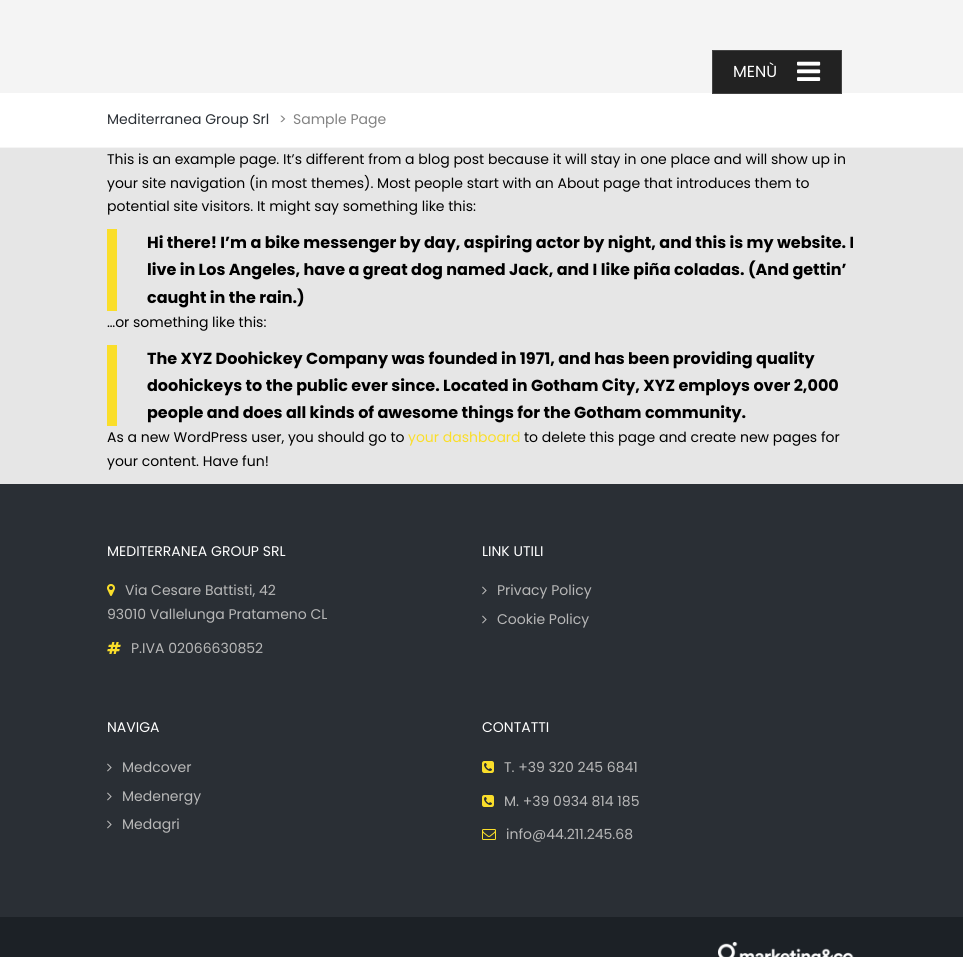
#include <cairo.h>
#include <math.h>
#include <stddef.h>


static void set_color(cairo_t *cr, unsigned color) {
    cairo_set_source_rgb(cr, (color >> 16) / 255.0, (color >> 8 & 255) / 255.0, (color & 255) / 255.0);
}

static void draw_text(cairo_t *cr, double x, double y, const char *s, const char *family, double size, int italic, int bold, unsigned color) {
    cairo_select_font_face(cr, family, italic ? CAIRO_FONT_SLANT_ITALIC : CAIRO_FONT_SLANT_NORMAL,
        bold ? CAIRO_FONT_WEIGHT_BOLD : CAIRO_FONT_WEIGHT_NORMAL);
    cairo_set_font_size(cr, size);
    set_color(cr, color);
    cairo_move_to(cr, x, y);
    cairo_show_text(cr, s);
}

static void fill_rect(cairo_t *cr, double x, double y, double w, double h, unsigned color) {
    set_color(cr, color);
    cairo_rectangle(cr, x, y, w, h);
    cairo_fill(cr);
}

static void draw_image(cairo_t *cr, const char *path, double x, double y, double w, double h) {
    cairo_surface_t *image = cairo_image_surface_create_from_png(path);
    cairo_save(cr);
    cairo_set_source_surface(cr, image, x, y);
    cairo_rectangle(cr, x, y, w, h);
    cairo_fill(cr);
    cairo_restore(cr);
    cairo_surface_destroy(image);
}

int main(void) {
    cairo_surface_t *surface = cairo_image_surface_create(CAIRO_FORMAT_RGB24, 963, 957);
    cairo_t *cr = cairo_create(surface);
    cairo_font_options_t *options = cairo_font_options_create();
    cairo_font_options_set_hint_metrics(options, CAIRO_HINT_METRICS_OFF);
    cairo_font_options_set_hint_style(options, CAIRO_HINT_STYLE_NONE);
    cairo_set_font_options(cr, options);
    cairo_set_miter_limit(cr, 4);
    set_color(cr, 0xE6E6E6);
    cairo_paint(cr);
    fill_rect(cr, 0, 93, 963, 54, 0xFFFFFF);
    draw_text(cr, 107, 124, "Mediterranea Group Srl", "Poppins", 14, 0, 0, 0x2A2F35);
    draw_text(cr, 293, 124, "Sample Page", "Poppins", 14, 0, 0, 0x828282);
    cairo_set_source_rgba(cr, 1, 1, 1, 0.2);
    cairo_rectangle(cr, 122, 124, 255, 1);
    cairo_fill(cr);
    fill_rect(cr, 0, 0, 963, 93, 0xF4F4F4);
    set_color(cr, 0x222222);
    cairo_rectangle(cr, 712.5, 50.5, 129, 43);
    cairo_fill_preserve(cr);
    set_color(cr, 0x434343);
    cairo_set_line_width(cr, 1);
    cairo_stroke(cr);
    draw_text(cr, 733, 77, "MENÙ", "Poppins", 16, 0, 0, 0xFFFFFF);
    draw_image(cr, "assets/img1.png", 797, 61, 24, 20);
    fill_rect(cr, 0, 147, 963, 1, 0xF5F5F5);
    draw_text(cr, 279, 124, ">", "Poppins", 14, 0, 0, 0x828282);
    draw_text(cr, 107, 164, "This is an example page. It’s different from a blog post because it will stay in one place and will show up in", "Poppins", 14, 0, 0, 0x000000);
    draw_text(cr, 107, 188, "your site navigation (in most themes). Most people start with an About page that introduces them to", "Poppins", 14, 0, 0, 0x000000);
    draw_text(cr, 107, 211, "potential site visitors. It might say something like this:", "Poppins", 14, 0, 0, 0x000000);
    fill_rect(cr, 107, 229, 10, 82, 0xFADE2A);
    draw_text(cr, 147, 248, "Hi there! I’m a bike messenger by day, aspiring actor by night, and this is my website. I", "Poppins", 16, 0, 1, 0x000000);
    draw_text(cr, 147, 275, "live in Los Angeles, have a great dog named Jack, and I like piña coladas. (And gettin’", "Poppins", 16, 0, 1, 0x000000);
    draw_text(cr, 147, 303, "caught in the rain.)", "Poppins", 16, 0, 1, 0x000000);
    draw_text(cr, 107, 327, "…or something like this:", "Poppins", 14, 0, 0, 0x000000);
    fill_rect(cr, 107, 345, 10, 81, 0xFADE2A);
    draw_text(cr, 147, 364, "The XYZ Doohickey Company was founded in 1971, and has been providing quality", "Poppins", 16, 0, 1, 0x000000);
    draw_text(cr, 147, 391, "doohickeys to the public ever since. Located in Gotham City, XYZ employs over 2,000", "Poppins", 16, 0, 1, 0x000000);
    draw_text(cr, 147, 418, "people and does all kinds of awesome things for the Gotham community.", "Poppins", 16, 0, 1, 0x000000);
    draw_text(cr, 107, 442, "As a new WordPress user, you should go to", "Poppins", 14, 0, 0, 0x000000);
    draw_text(cr, 408, 442, "your dashboard", "Poppins", 14, 0, 0, 0xFADE2A);
    draw_text(cr, 524, 442, "to delete this page and create new pages for", "Poppins", 14, 0, 0, 0x000000);
    draw_text(cr, 107, 466, "your content. Have fun!", "Poppins", 14, 0, 0, 0x000000);
    fill_rect(cr, 0, 484, 963, 433, 0x2A2F35);
    draw_text(cr, 107, 556, "MEDITERRANEA GROUP SRL", "Poppins", 14, 0, 0, 0xFFFFFF);
    draw_image(cr, "assets/img2.png", 107, 584, 8, 12);
    draw_text(cr, 125, 595, "Via Cesare Battisti, 42", "Poppins", 14, 0, 0, 0xB8B8B8);
    draw_text(cr, 107, 619, "93010 Vallelunga Pratameno CL", "Poppins", 14, 0, 0, 0xB8B8B8);
    draw_image(cr, "assets/img3.png", 107, 642, 14, 12);
    draw_text(cr, 131, 653, "P.IVA 02066630852", "Poppins", 14, 0, 0, 0xB8B8B8);
    draw_text(cr, 482, 556, "LINK UTILI", "Poppins", 14, 0, 0, 0xFFFFFF);
    draw_image(cr, "assets/img4.png", 482, 586, 5, 9);
    draw_text(cr, 497, 595, "Privacy Policy", "Poppins", 14, 0, 0, 0xB8B8B8);
    draw_image(cr, "assets/img4.png", 482, 615, 5, 9);
    draw_text(cr, 497, 624, "Cookie Policy", "Poppins", 14, 0, 0, 0xB8B8B8);
    draw_text(cr, 107, 732, "NAVIGA", "Poppins", 14, 0, 0, 0xFFFFFF);
    draw_image(cr, "assets/img4.png", 107, 763, 5, 9);
    draw_text(cr, 122, 772, "Medcover", "Poppins", 14, 0, 0, 0xB8B8B8);
    draw_image(cr, "assets/img4.png", 107, 792, 5, 9);
    draw_text(cr, 122, 801, "Medenergy", "Poppins", 14, 0, 0, 0xB8B8B8);
    draw_image(cr, "assets/img4.png", 107, 820, 5, 9);
    draw_text(cr, 122, 829, "Medagri", "Poppins", 14, 0, 0, 0xB8B8B8);
    draw_text(cr, 482, 732, "CONTATTI", "Poppins", 14, 0, 0, 0xFFFFFF);
    draw_image(cr, "assets/img5.png", 482, 761, 12, 12);
    draw_text(cr, 504, 772, "T. +39 320 245 6841", "Poppins", 14, 0, 0, 0xB8B8B8);
    draw_image(cr, "assets/img5.png", 482, 795, 12, 12);
    draw_text(cr, 504, 806, "M. +39 0934 814 185", "Poppins", 14, 0, 0, 0xB8B8B8);
    draw_image(cr, "assets/img6.png", 482, 829, 14, 11);
    draw_text(cr, 506, 839, "info@44.211.245.68", "Poppins", 14, 0, 0, 0xB8B8B8);
    fill_rect(cr, 0, 917, 963, 40, 0x1C2126);
    draw_image(cr, "assets/img7.png", 718, 942, 136, 15);
    cairo_surface_write_to_png(surface, "output.png");
    cairo_font_options_destroy(options);
    cairo_destroy(cr);
    cairo_surface_destroy(surface);
    return 0;
}
